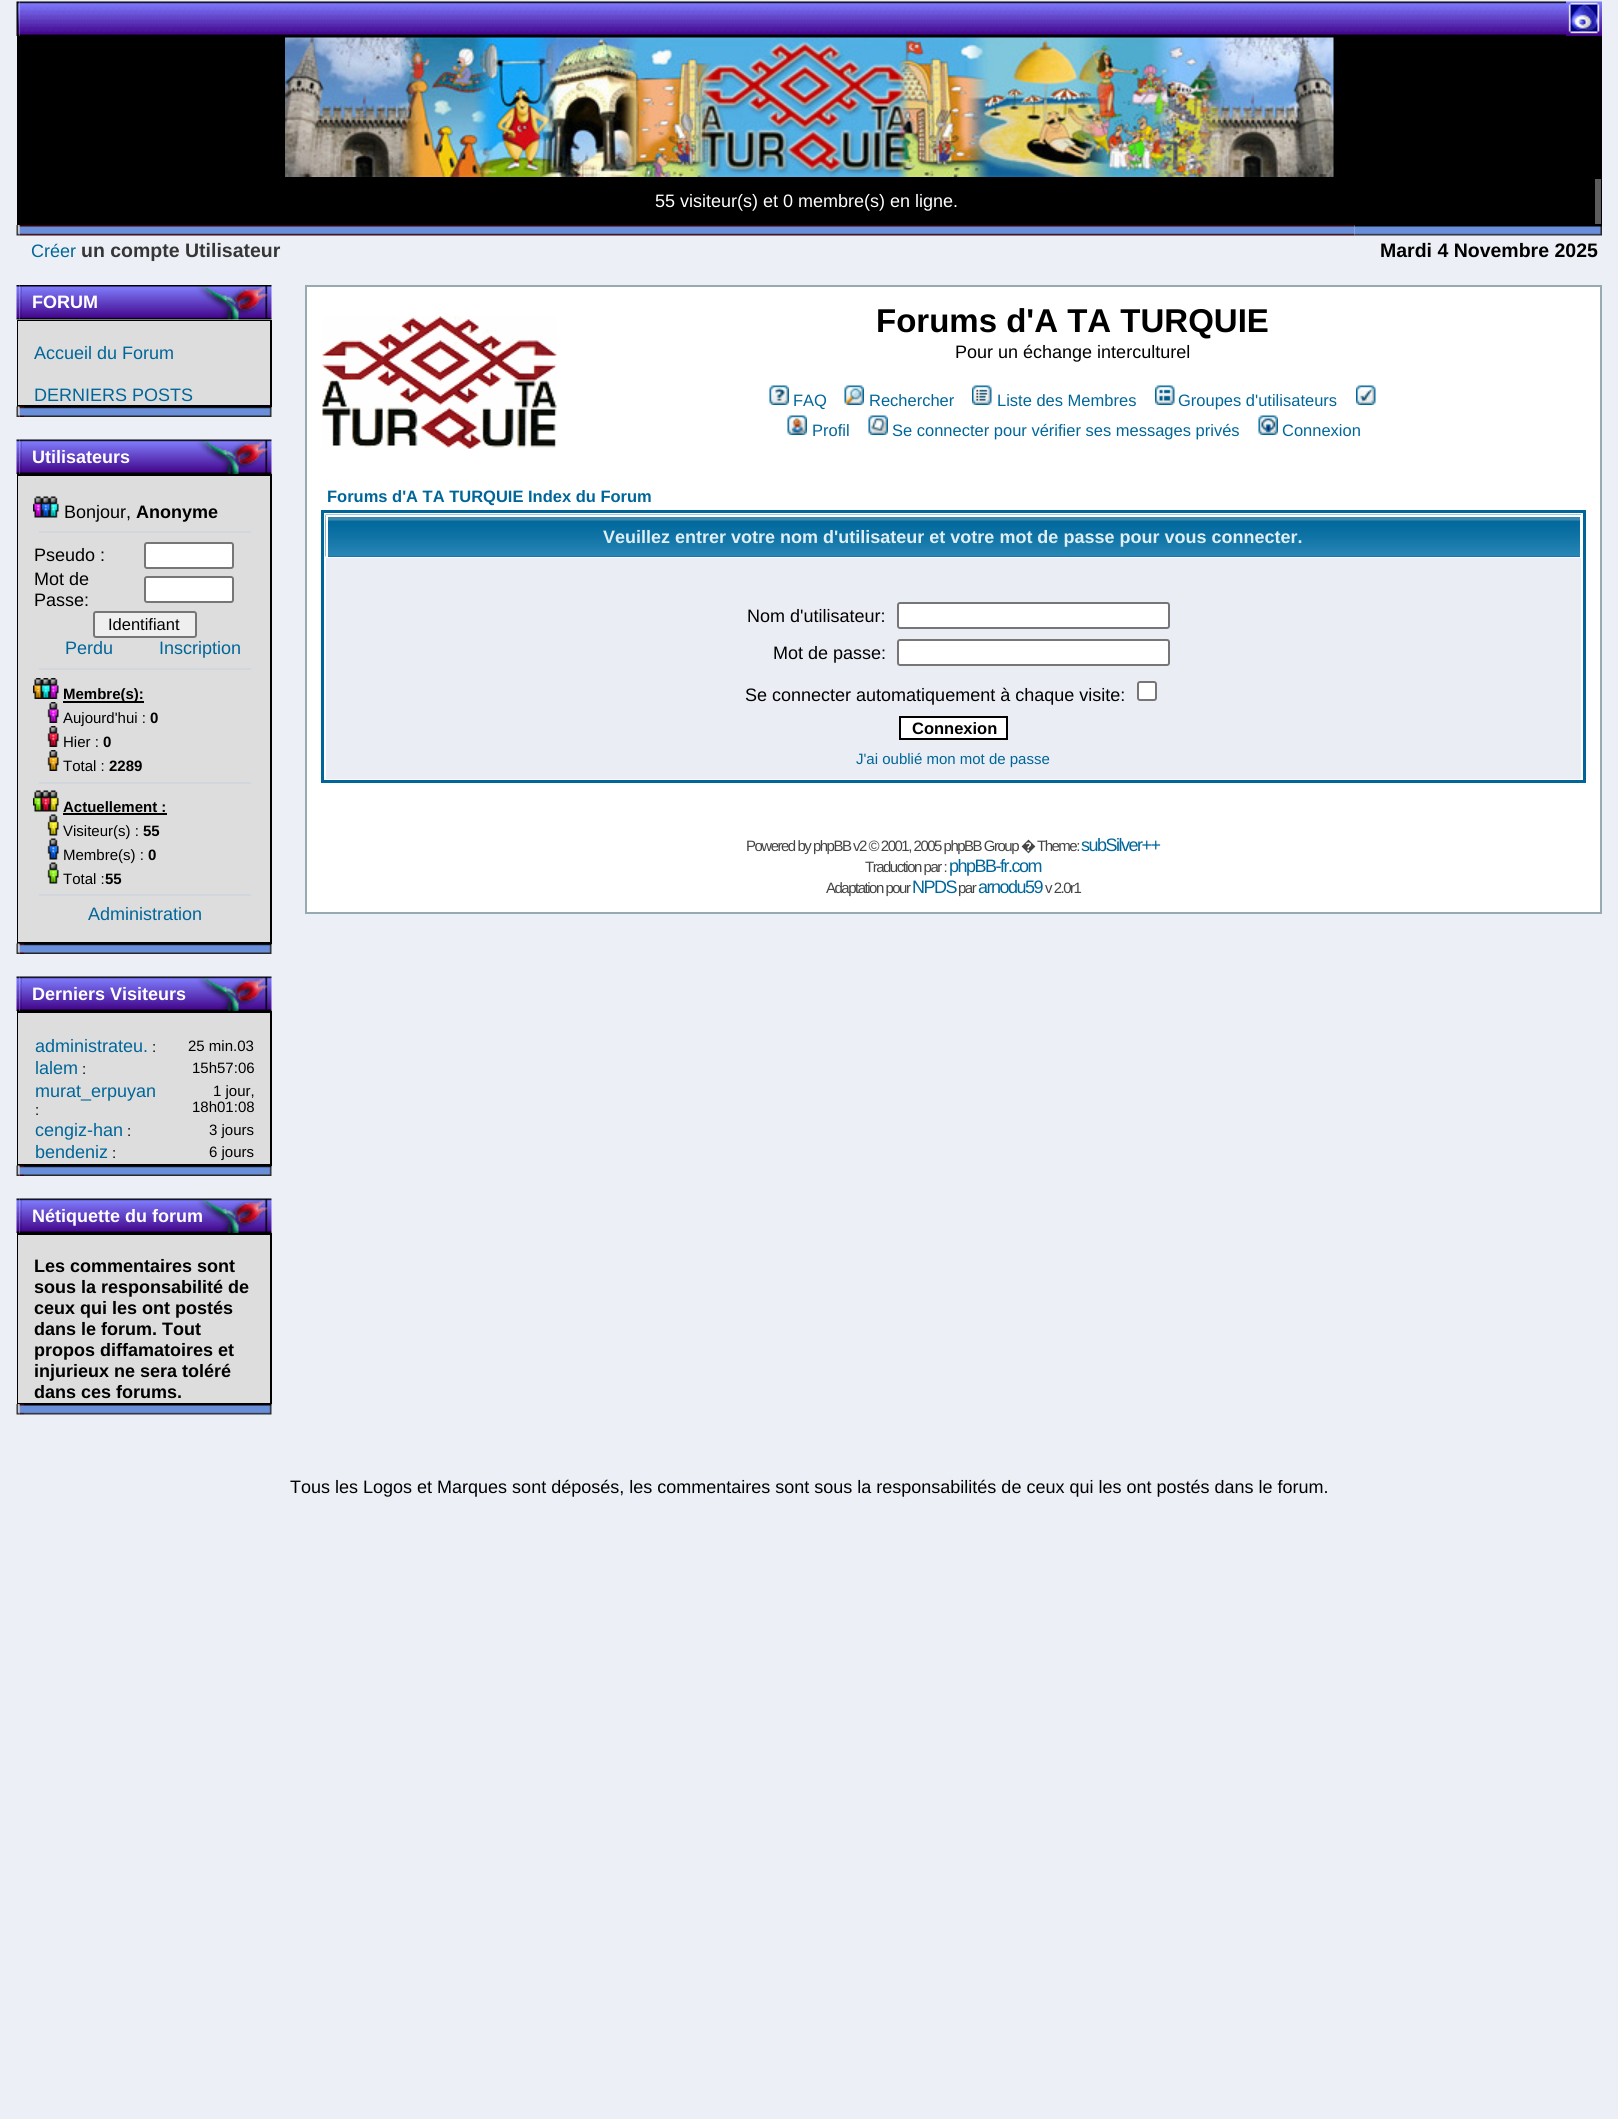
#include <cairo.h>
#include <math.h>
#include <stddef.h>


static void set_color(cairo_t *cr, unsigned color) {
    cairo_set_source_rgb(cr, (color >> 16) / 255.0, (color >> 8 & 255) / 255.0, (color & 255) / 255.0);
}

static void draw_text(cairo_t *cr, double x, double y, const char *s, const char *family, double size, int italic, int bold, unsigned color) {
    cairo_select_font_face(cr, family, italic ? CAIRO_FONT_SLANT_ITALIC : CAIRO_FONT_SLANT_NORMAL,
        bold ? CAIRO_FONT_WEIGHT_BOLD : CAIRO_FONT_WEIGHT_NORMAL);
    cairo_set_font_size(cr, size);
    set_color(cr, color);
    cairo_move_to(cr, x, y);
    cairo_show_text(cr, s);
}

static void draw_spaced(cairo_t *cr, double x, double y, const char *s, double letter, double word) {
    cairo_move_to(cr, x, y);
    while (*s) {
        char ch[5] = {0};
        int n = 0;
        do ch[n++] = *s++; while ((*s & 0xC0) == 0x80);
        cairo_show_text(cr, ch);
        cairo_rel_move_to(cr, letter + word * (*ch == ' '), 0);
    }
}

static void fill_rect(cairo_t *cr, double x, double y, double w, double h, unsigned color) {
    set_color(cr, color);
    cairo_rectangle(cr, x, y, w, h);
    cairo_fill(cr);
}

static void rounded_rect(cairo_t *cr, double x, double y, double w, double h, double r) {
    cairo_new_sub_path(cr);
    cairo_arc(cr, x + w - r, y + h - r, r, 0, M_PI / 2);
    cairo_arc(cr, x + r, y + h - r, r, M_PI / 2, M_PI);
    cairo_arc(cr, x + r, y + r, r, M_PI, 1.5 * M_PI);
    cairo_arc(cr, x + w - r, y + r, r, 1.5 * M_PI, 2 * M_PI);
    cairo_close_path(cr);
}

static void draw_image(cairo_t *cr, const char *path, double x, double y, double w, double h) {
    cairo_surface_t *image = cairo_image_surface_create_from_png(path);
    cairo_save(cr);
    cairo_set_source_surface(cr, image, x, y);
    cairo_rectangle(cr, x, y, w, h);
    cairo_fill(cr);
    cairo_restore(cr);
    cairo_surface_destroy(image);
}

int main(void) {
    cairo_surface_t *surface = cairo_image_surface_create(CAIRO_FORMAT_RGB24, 1618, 2119);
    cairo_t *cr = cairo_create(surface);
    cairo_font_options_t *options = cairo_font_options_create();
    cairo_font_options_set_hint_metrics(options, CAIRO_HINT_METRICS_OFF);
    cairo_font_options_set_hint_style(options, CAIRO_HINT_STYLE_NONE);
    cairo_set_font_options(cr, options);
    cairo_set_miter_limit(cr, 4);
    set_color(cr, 0xECF0F6);
    cairo_paint(cr);
    draw_image(cr, "assets/img1.png", 16, 1, 4, 35);
    draw_image(cr, "assets/img2.png", 19, 1, 1547, 35);
    draw_image(cr, "assets/img3.png", 1566, 1, 36, 35);
    fill_rect(cr, 17, 36, 1585, 189, 0x000000);
    draw_image(cr, "assets/img4.png", 285, 37, 1049, 140);
    draw_text(cr, 655, 207, "55 visiteur(s) et 0 membre(s) en ligne.", "Liberation Sans", 18, 0, 0, 0xFFFFFF);
    fill_rect(cr, 1595, 179, 6, 45, 0x5C5C5C);
    draw_image(cr, "assets/img5.png", 16, 225, 4, 11);
    draw_image(cr, "assets/img6.png", 19, 225, 1336, 11);
    draw_image(cr, "assets/img7.png", 1354, 225, 248, 11);
    draw_text(cr, 31, 257, "Créer", "Liberation Sans", 18, 0, 0, 0x006699);
    draw_text(cr, 81, 257, "un compte Utilisateur", "Liberation Sans", 19.5, 0, 1, 0x363636);
    draw_text(cr, 1380, 257, "Mardi 4 Novembre 2025", "Liberation Sans", 19.5, 0, 1, 0x000000);
    draw_image(cr, "assets/img9.png", 19, 285, 2, 35);
    draw_image(cr, "assets/img8.png", 16, 285, 4, 35);
    draw_image(cr, "assets/img10.png", 21, 285, 251, 35);
    draw_text(cr, 32, 308, "FORUM", "Liberation Sans", 18, 0, 1, 0xFFFFFF);
    fill_rect(cr, 17, 320, 255, 87, 0x000000);
    fill_rect(cr, 18, 321, 252, 84, 0xDDDDDD);
    draw_text(cr, 34, 359, "Accueil du Forum", "Liberation Sans", 18, 0, 0, 0x006699);
    draw_text(cr, 34, 401, "DERNIERS POSTS", "Liberation Sans", 18, 0, 0, 0x006699);
    draw_image(cr, "assets/img11.png", 16, 406, 4, 11);
    draw_image(cr, "assets/img12.png", 19, 406, 5, 11);
    draw_image(cr, "assets/img13.png", 24, 407, 248, 10);
    draw_image(cr, "assets/img15.png", 19, 439, 2, 35);
    draw_image(cr, "assets/img14.png", 16, 439, 4, 35);
    draw_image(cr, "assets/img16.png", 21, 439, 251, 35);
    draw_text(cr, 32, 463, "Utilisateurs", "Liberation Sans", 18, 0, 1, 0xFFFFFF);
    fill_rect(cr, 17, 474, 255, 470, 0x000000);
    fill_rect(cr, 18, 476, 252, 466, 0xDDDDDD);
    draw_image(cr, "assets/img17.png", 33, 496, 26, 22);
    draw_text(cr, 64, 518, "Bonjour,", "Liberation Sans", 18, 0, 0, 0x000000);
    draw_text(cr, 136, 518, "Anonyme", "Liberation Sans", 18, 0, 1, 0x000000);
    fill_rect(cr, 39, 531, 212, 2, 0xD1D7DC);
    draw_text(cr, 34, 561, "Pseudo :", "Liberation Sans", 18, 0, 0, 0x000000);
    set_color(cr, 0xFFFFFF);
    rounded_rect(cr, 145, 543, 88, 25, 2);
    cairo_fill_preserve(cr);
    set_color(cr, 0x767676);
    cairo_stroke(cr);
    draw_text(cr, 34, 585, "Mot de", "Liberation Sans", 18, 0, 0, 0x000000);
    draw_text(cr, 34, 606, "Passe:", "Liberation Sans", 18, 0, 0, 0x000000);
    set_color(cr, 0xFFFFFF);
    rounded_rect(cr, 145, 577, 88, 25, 2);
    cairo_fill_preserve(cr);
    set_color(cr, 0x767676);
    cairo_stroke(cr);
    set_color(cr, 0xEFEFEF);
    rounded_rect(cr, 94, 612, 102, 25, 2);
    cairo_fill_preserve(cr);
    set_color(cr, 0x767676);
    cairo_stroke(cr);
    draw_text(cr, 108, 630, "Identifiant", "Liberation Sans", 16.5, 0, 0, 0x000000);
    draw_text(cr, 65, 654, "Perdu", "Liberation Sans", 18, 0, 0, 0x006699);
    draw_text(cr, 159, 654, "Inscription", "Liberation Sans", 18, 0, 0, 0x006699);
    fill_rect(cr, 39, 668, 212, 2, 0xD1D7DC);
    draw_image(cr, "assets/img18.png", 33, 678, 26, 21);
    fill_rect(cr, 63, 701, 81, 2, 0x000000);
    draw_text(cr, 63, 699, "Membre(s):", "Liberation Sans", 15, 0, 1, 0x000000);
    draw_image(cr, "assets/img19.png", 47, 702, 12, 21);
    draw_text(cr, 63, 723, "Aujourd'hui :", "Liberation Sans", 15, 0, 0, 0x000000);
    draw_text(cr, 150, 723, "0", "Liberation Sans", 15, 0, 1, 0x000000);
    draw_image(cr, "assets/img20.png", 47, 726, 12, 21);
    draw_text(cr, 63, 747, "Hier :", "Liberation Sans", 15, 0, 0, 0x000000);
    draw_text(cr, 103, 747, "0", "Liberation Sans", 15, 0, 1, 0x000000);
    draw_image(cr, "assets/img21.png", 47, 750, 12, 21);
    draw_text(cr, 63, 771, "Total :", "Liberation Sans", 15, 0, 0, 0x000000);
    draw_text(cr, 109, 771, "2289", "Liberation Sans", 15, 0, 1, 0x000000);
    fill_rect(cr, 39, 782, 212, 2, 0xD1D7DC);
    draw_image(cr, "assets/img22.png", 33, 790, 26, 22);
    draw_text(cr, 63, 812, "Actuellement :", "Liberation Sans", 15, 0, 1, 0x000000);
    fill_rect(cr, 63, 813, 104, 2, 0x000000);
    draw_image(cr, "assets/img23.png", 47, 814, 12, 22);
    draw_text(cr, 63, 836, "Visiteur(s) :", "Liberation Sans", 15, 0, 0, 0x000000);
    draw_text(cr, 143, 836, "55", "Liberation Sans", 15, 0, 1, 0x000000);
    draw_image(cr, "assets/img24.png", 47, 838, 12, 22);
    draw_text(cr, 63, 860, "Membre(s) :", "Liberation Sans", 15, 0, 0, 0x000000);
    draw_text(cr, 148, 860, "0", "Liberation Sans", 15, 0, 1, 0x000000);
    draw_image(cr, "assets/img25.png", 47, 862, 12, 22);
    draw_text(cr, 63, 884, "Total :", "Liberation Sans", 15, 0, 0, 0x000000);
    draw_text(cr, 105, 884, "55", "Liberation Sans", 15, 0, 1, 0x000000);
    fill_rect(cr, 39, 894, 212, 2, 0xD1D7DC);
    draw_text(cr, 88, 920, "Administration", "Liberation Sans", 18, 0, 0, 0x006699);
    draw_image(cr, "assets/img11.png", 16, 943, 4, 11);
    draw_image(cr, "assets/img12.png", 19, 943, 5, 11);
    draw_image(cr, "assets/img13.png", 24, 944, 248, 10);
    draw_image(cr, "assets/img15.png", 19, 976, 2, 35);
    draw_image(cr, "assets/img14.png", 16, 976, 4, 35);
    draw_image(cr, "assets/img26.png", 21, 976, 251, 35);
    draw_text(cr, 32, 1000, "Derniers Visiteurs", "Liberation Sans", 18, 0, 1, 0xFFFFFF);
    fill_rect(cr, 17, 1011, 255, 155, 0x000000);
    fill_rect(cr, 18, 1013, 252, 151, 0xDDDDDD);
    draw_text(cr, 35, 1052, "administrateu.", "Liberation Sans", 18, 0, 0, 0x006699);
    draw_text(cr, 152, 1052, ":", "Liberation Sans", 15, 0, 0, 0x000000);
    draw_text(cr, 188, 1051, "25 min.03", "Liberation Sans", 15, 0, 0, 0x000000);
    draw_text(cr, 35, 1074, "lalem", "Liberation Sans", 18, 0, 0, 0x006699);
    draw_text(cr, 82, 1074, ":", "Liberation Sans", 15, 0, 0, 0x000000);
    draw_text(cr, 192, 1073, "15h57:06", "Liberation Sans", 15, 0, 0, 0x000000);
    draw_text(cr, 35, 1097, "murat_erpuyan", "Liberation Sans", 18, 0, 0, 0x006699);
    draw_text(cr, 35, 1115, ":", "Liberation Sans", 15, 0, 0, 0x000000);
    draw_text(cr, 213, 1096, "1 jour,", "Liberation Sans", 15, 0, 0, 0x000000);
    draw_text(cr, 192, 1112, "18h01:08", "Liberation Sans", 15, 0, 0, 0x000000);
    draw_text(cr, 35, 1136, "cengiz-han", "Liberation Sans", 18, 0, 0, 0x006699);
    draw_text(cr, 127, 1136, ":", "Liberation Sans", 15, 0, 0, 0x000000);
    draw_text(cr, 209, 1135, "3 jours", "Liberation Sans", 15, 0, 0, 0x000000);
    draw_text(cr, 35, 1158, "bendeniz", "Liberation Sans", 18, 0, 0, 0x006699);
    draw_text(cr, 112, 1158, ":", "Liberation Sans", 15, 0, 0, 0x000000);
    draw_text(cr, 209, 1157, "6 jours", "Liberation Sans", 15, 0, 0, 0x000000);
    draw_image(cr, "assets/img11.png", 16, 1165, 4, 11);
    draw_image(cr, "assets/img12.png", 19, 1165, 5, 11);
    draw_image(cr, "assets/img13.png", 24, 1166, 248, 10);
    draw_image(cr, "assets/img15.png", 19, 1198, 2, 35);
    draw_image(cr, "assets/img14.png", 16, 1198, 4, 35);
    draw_image(cr, "assets/img27.png", 21, 1198, 251, 35);
    draw_text(cr, 32, 1222, "Nétiquette du forum", "Liberation Sans", 18, 0, 1, 0xFFFFFF);
    fill_rect(cr, 17, 1233, 255, 171, 0x000000);
    fill_rect(cr, 18, 1235, 252, 168, 0xDDDDDD);
    draw_text(cr, 34, 1272, "Les commentaires sont", "Liberation Sans", 18, 0, 1, 0x000000);
    draw_text(cr, 34, 1293, "sous la responsabilité de", "Liberation Sans", 18, 0, 1, 0x000000);
    draw_text(cr, 34, 1314, "ceux qui les ont postés", "Liberation Sans", 18, 0, 1, 0x000000);
    draw_text(cr, 34, 1335, "dans le forum. Tout", "Liberation Sans", 18, 0, 1, 0x000000);
    draw_text(cr, 34, 1356, "propos diffamatoires et", "Liberation Sans", 18, 0, 1, 0x000000);
    draw_text(cr, 34, 1377, "injurieux ne sera toléré", "Liberation Sans", 18, 0, 1, 0x000000);
    draw_text(cr, 34, 1398, "dans ces forums.", "Liberation Sans", 18, 0, 1, 0x000000);
    draw_image(cr, "assets/img5.png", 16, 1404, 4, 11);
    draw_image(cr, "assets/img28.png", 19, 1404, 5, 11);
    draw_image(cr, "assets/img29.png", 24, 1404, 248, 11);
    set_color(cr, 0xFFFFFF);
    cairo_rectangle(cr, 306, 286, 1295, 627);
    cairo_fill_preserve(cr);
    set_color(cr, 0x98AAB1);
    cairo_stroke(cr);
    draw_image(cr, "assets/img30.png", 322, 316, 235, 133);
    draw_text(cr, 876, 332, "Forums d'A TA TURQUIE", "Liberation Sans", 33, 0, 1, 0x000000);
    draw_text(cr, 955, 358, "Pour un échange interculturel", "Liberation Sans", 18, 0, 0, 0x000000);
    draw_image(cr, "assets/img31.png", 769, 385, 20, 20);
    draw_text(cr, 793, 406, "FAQ", "Liberation Sans", 16.5, 0, 0, 0x006699);
    draw_image(cr, "assets/img32.png", 844, 385, 20, 20);
    draw_text(cr, 869, 406, "Rechercher", "Liberation Sans", 16.5, 0, 0, 0x006699);
    draw_image(cr, "assets/img33.png", 972, 385, 20, 20);
    draw_text(cr, 997, 406, "Liste des Membres", "Liberation Sans", 16.5, 0, 0, 0x006699);
    draw_image(cr, "assets/img34.png", 1155, 385, 20, 20);
    draw_text(cr, 1178, 406, "Groupes d'utilisateurs", "Liberation Sans", 16.5, 0, 0, 0x006699);
    draw_image(cr, "assets/img35.png", 1356, 385, 20, 20);
    draw_image(cr, "assets/img36.png", 787, 415, 20, 20);
    draw_text(cr, 812, 436, "Profil", "Liberation Sans", 16.5, 0, 0, 0x006699);
    draw_image(cr, "assets/img37.png", 868, 415, 20, 20);
    draw_text(cr, 892, 436, "Se connecter pour vérifier ses messages privés", "Liberation Sans", 16.5, 0, 0, 0x006699);
    draw_image(cr, "assets/img38.png", 1258, 415, 20, 20);
    draw_text(cr, 1282, 436, "Connexion", "Liberation Sans", 16.5, 0, 0, 0x006699);
    draw_text(cr, 327, 502, "Forums d'A TA TURQUIE Index du Forum", "Liberation Sans", 16.5, 0, 1, 0x006699);
    cairo_rectangle(cr, 322.5, 511.5, 1262, 270);
    cairo_set_line_width(cr, 3);
    cairo_stroke(cr);
    fill_rect(cr, 328, 556, 1252, 1, 0x0060B5);
    draw_image(cr, "assets/img39.png", 325, 514, 1256, 43);
    fill_rect(cr, 326, 515, 1255, 2, 0xFFFFFF);
    fill_rect(cr, 1580, 515, 1, 42, 0xFFFFFF);
    fill_rect(cr, 326, 515, 2, 42, 0xFFFFFF);
    draw_text(cr, 603, 543, "Veuillez entrer votre nom d'utilisateur et votre mot de passe pour vous connecter.", "Liberation Sans", 18, 0, 1, 0xDEEEF3);
    fill_rect(cr, 326, 558, 1255, 221, 0xEAEDF4);
    draw_text(cr, 747, 622, "Nom d'utilisateur:", "Liberation Sans", 18, 0, 0, 0x000000);
    set_color(cr, 0xFFFFFF);
    rounded_rect(cr, 898, 603, 271, 25, 2);
    cairo_fill_preserve(cr);
    set_color(cr, 0x767676);
    cairo_set_line_width(cr, 2);
    cairo_stroke(cr);
    draw_text(cr, 773, 659, "Mot de passe:", "Liberation Sans", 18, 0, 0, 0x000000);
    set_color(cr, 0xFFFFFF);
    rounded_rect(cr, 898, 640, 271, 25, 2);
    cairo_fill_preserve(cr);
    set_color(cr, 0x767676);
    cairo_stroke(cr);
    draw_text(cr, 745, 701, "Se connecter automatiquement à chaque visite:", "Liberation Sans", 18, 0, 0, 0x000000);
    set_color(cr, 0xFFFFFF);
    rounded_rect(cr, 1138, 682, 18, 18, 2);
    cairo_fill_preserve(cr);
    set_color(cr, 0x767676);
    cairo_stroke(cr);
    set_color(cr, 0xFFFFFF);
    cairo_rectangle(cr, 900, 717, 107, 22);
    cairo_fill_preserve(cr);
    set_color(cr, 0x000000);
    cairo_stroke(cr);
    draw_text(cr, 912, 734, "Connexion", "Liberation Sans", 16.5, 0, 1, 0x000000);
    draw_text(cr, 856, 764, "J'ai oublié mon mot de passe", "Liberation Sans", 15, 0, 0, 0x006699);
    set_color(cr, 0x444444);
    draw_spaced(cr, 746, 851, "Powered by phpBB v2 © 2001, 2005 phpBB Group", -1.5, 0);
    cairo_select_font_face(cr, "Noto Sans", CAIRO_FONT_SLANT_NORMAL, CAIRO_FONT_WEIGHT_NORMAL);
    draw_spaced(cr, 1021, 851, "�", -1.5, 0);
    cairo_select_font_face(cr, "Liberation Sans", CAIRO_FONT_SLANT_NORMAL, CAIRO_FONT_WEIGHT_NORMAL);
    draw_spaced(cr, 1037, 851, "Theme:", -1.5, 0);
    cairo_set_font_size(cr, 18);
    set_color(cr, 0x006699);
    draw_spaced(cr, 1081, 851, "subSilver++", -1.5, 0);
    cairo_set_font_size(cr, 15);
    set_color(cr, 0x444444);
    draw_spaced(cr, 865, 872, "Traduction par :", -1.5, 0);
    cairo_set_font_size(cr, 18);
    set_color(cr, 0x006699);
    draw_spaced(cr, 949, 872, "phpBB-fr.com", -1.5, 0);
    cairo_set_font_size(cr, 15);
    set_color(cr, 0x444444);
    draw_spaced(cr, 826, 893, "Adaptation pour", -1.5, 0);
    cairo_set_font_size(cr, 18);
    set_color(cr, 0x006699);
    draw_spaced(cr, 912, 893, "NPDS", -1.5, 0);
    cairo_set_font_size(cr, 15);
    set_color(cr, 0x444444);
    draw_spaced(cr, 958, 893, "par", -1.5, 0);
    cairo_set_font_size(cr, 18);
    set_color(cr, 0x006699);
    draw_spaced(cr, 978, 893, "arnodu59", -1.5, 0);
    cairo_set_font_size(cr, 15);
    set_color(cr, 0x444444);
    draw_spaced(cr, 1045, 893, "v 2.0r1", -1.5, 0);
    draw_text(cr, 290, 1493, "Tous les Logos et Marques sont déposés, les commentaires sont sous la responsabilités de ceux qui les ont postés dans le forum.", "Liberation Sans", 18, 0, 0, 0x000000);
    cairo_surface_write_to_png(surface, "output.png");
    cairo_font_options_destroy(options);
    cairo_destroy(cr);
    cairo_surface_destroy(surface);
    return 0;
}
